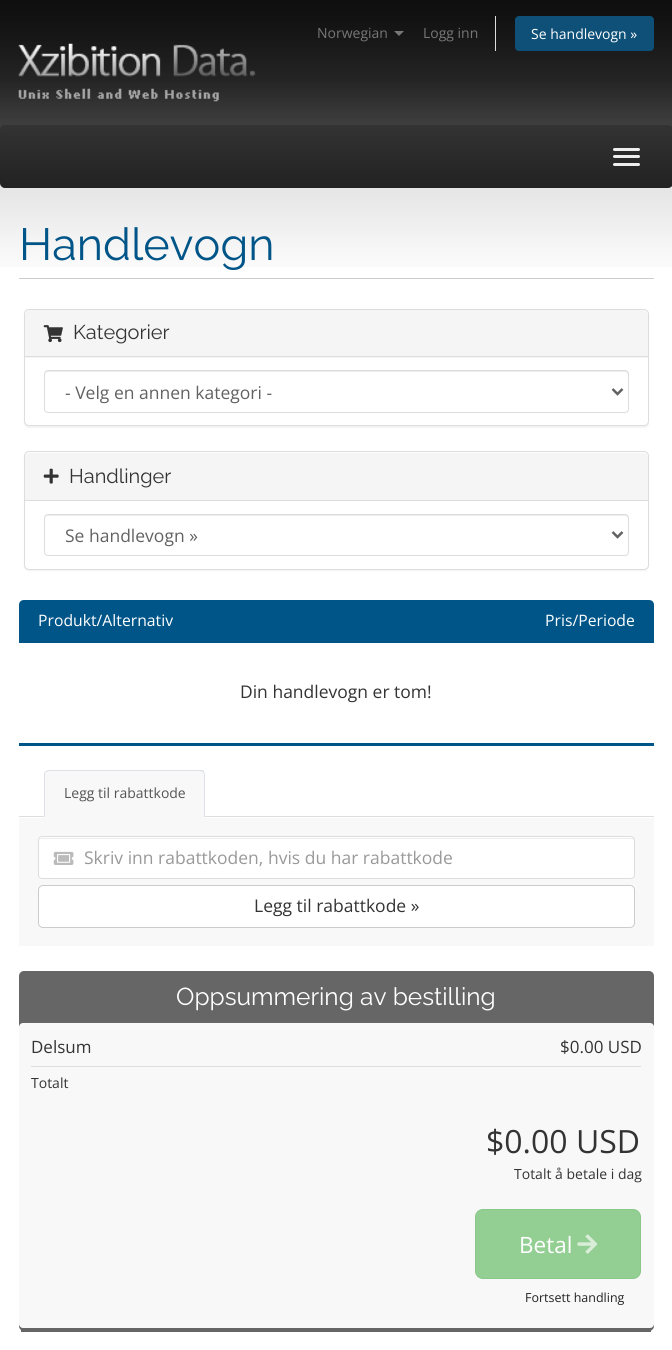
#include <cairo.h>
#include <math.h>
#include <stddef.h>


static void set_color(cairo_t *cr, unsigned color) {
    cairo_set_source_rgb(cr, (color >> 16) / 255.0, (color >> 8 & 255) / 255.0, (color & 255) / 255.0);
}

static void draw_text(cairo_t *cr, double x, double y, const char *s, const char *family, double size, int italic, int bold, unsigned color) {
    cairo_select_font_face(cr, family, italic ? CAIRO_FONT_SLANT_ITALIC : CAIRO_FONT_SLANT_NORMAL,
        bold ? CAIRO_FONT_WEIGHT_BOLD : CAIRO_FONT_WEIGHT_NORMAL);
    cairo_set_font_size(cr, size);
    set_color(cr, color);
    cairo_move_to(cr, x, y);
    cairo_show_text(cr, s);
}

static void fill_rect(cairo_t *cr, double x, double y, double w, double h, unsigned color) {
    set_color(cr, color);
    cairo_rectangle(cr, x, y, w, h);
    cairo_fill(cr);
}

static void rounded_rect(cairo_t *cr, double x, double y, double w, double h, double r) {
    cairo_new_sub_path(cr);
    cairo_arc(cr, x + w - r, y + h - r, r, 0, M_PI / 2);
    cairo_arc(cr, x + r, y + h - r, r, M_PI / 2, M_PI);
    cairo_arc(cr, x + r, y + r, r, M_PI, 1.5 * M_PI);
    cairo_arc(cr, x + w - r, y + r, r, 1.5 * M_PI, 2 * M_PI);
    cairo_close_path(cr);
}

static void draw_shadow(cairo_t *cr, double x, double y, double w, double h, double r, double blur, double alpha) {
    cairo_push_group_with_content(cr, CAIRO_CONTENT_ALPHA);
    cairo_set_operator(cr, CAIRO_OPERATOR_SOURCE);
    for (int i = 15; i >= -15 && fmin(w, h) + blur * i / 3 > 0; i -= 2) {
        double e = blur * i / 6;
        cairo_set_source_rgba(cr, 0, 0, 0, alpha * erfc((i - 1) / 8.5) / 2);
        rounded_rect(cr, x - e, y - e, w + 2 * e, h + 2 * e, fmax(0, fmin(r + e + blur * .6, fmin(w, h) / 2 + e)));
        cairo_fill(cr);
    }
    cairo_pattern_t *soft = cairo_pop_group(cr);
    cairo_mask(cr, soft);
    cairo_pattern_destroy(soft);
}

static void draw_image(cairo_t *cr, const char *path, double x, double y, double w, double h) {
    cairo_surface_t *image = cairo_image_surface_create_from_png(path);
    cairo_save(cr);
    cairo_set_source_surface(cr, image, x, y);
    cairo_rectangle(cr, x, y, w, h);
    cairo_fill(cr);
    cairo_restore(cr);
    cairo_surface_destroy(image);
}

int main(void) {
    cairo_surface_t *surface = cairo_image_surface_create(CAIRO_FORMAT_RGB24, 672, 1350);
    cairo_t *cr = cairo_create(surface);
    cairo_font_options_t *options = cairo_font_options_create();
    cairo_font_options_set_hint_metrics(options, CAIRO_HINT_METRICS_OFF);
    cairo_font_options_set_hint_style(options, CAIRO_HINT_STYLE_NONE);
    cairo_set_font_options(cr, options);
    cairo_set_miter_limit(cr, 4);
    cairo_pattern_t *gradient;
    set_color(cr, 0xFFFFFF);
    cairo_paint(cr);
    draw_image(cr, "assets/img1.png", 0, 0, 672, 267);
    draw_text(cr, 317, 38, "Norwegian", "Open Sans", 14, 0, 0, 0x777777);
    cairo_new_path(cr);
    cairo_move_to(cr, 394, 31);
    cairo_line_to(cr, 404, 31);
    cairo_line_to(cr, 399, 36);
    cairo_close_path(cr);
    cairo_fill(cr);
    draw_text(cr, 423, 38, "Logg inn", "Open Sans", 14, 0, 0, 0x777777);
    fill_rect(cr, 495, 16, 1, 35, 0xDDDDDD);
    set_color(cr, 0x0E5077);
    rounded_rect(cr, 515, 16, 139, 35, 4);
    cairo_fill(cr);
    draw_text(cr, 531, 39, "Se handlevogn »", "Open Sans", 14, 0, 0, 0xFFFFFF);
    draw_image(cr, "assets/img2.png", 18, 43, 238, 59);
    gradient = cairo_pattern_create_linear(336, 125, 336, 188);
    cairo_pattern_add_color_stop_rgba(gradient, 0, 0.2, 0.2, 0.2, 1);
    cairo_pattern_add_color_stop_rgba(gradient, 1, 0.133, 0.133, 0.133, 1);
    cairo_set_source(cr, gradient);
    cairo_pattern_destroy(gradient);
    rounded_rect(cr, 0, 125, 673, 63, 5);
    cairo_fill(cr);
    set_color(cr, 0xEEEEEE);
    rounded_rect(cr, 613, 148, 27, 3, 1.5);
    cairo_fill(cr);
    rounded_rect(cr, 613, 155, 27, 3, 1.5);
    cairo_fill(cr);
    rounded_rect(cr, 613, 163, 27, 3, 1.5);
    cairo_fill(cr);
    fill_rect(cr, 19, 278, 635, 1, 0xCCCCCC);
    draw_text(cr, 19, 260, "Handlevogn", "Raleway", 45, 0, 0, 0x005588);
    set_color(cr, 0x000000);
    draw_shadow(cr, 24, 310, 625, 118, 5, 0.5, 0.05);
    set_color(cr, 0xFFFFFF);
    rounded_rect(cr, 24.5, 309.5, 624, 116, 4.5);
    cairo_fill_preserve(cr);
    set_color(cr, 0xDDDDDD);
    cairo_set_line_width(cr, 1);
    cairo_stroke(cr);
    set_color(cr, 0xF5F5F5);
    cairo_new_path(cr);
    cairo_move_to(cr, 29, 310);
    cairo_line_to(cr, 644, 310);
    cairo_curve_to(cr, 646, 310, 648, 312, 648, 314);
    cairo_line_to(cr, 648, 358);
    cairo_line_to(cr, 25, 358);
    cairo_line_to(cr, 25, 314);
    cairo_curve_to(cr, 25, 312, 27, 310, 29, 310);
    cairo_close_path(cr);
    cairo_fill(cr);
    fill_rect(cr, 25, 356, 623, 1, 0xDDDDDD);
    draw_image(cr, "assets/img3.png", 43, 325, 20, 18);
    draw_text(cr, 73, 339, "Kategorier", "Raleway", 20, 0, 0, 0x333333);
    set_color(cr, 0xECECEC);
    cairo_new_path(cr);
    cairo_move_to(cr, 48, 372);
    cairo_line_to(cr, 625, 372);
    cairo_curve_to(cr, 626, 372, 628, 374, 628, 375);
    cairo_line_to(cr, 628, 374);
    cairo_curve_to(cr, 628, 372, 627, 371, 626, 371);
    cairo_line_to(cr, 48, 371);
    cairo_curve_to(cr, 46, 371, 45, 372, 45, 374);
    cairo_line_to(cr, 45, 375);
    cairo_curve_to(cr, 45, 374, 46, 372, 48, 372);
    cairo_close_path(cr);
    cairo_fill(cr);
    rounded_rect(cr, 44.5, 370.5, 584, 42, 3.5);
    set_color(cr, 0xDDDDDD);
    cairo_stroke(cr);
    cairo_new_path(cr);
    cairo_move_to(cr, 612.5, 389);
    cairo_line_to(cr, 617.5, 394);
    cairo_line_to(cr, 622.5, 389);
    set_color(cr, 0x626262);
    cairo_set_line_width(cr, 2.5);
    cairo_stroke(cr);
    draw_text(cr, 65, 399, "- Velg en annen kategori -", "Open Sans", 17.5, 0, 0, 0x626262);
    set_color(cr, 0x000000);
    draw_shadow(cr, 24, 453, 625, 118, 5, 0.5, 0.05);
    set_color(cr, 0xFFFFFF);
    rounded_rect(cr, 24.5, 451.5, 624, 118, 4.5);
    cairo_fill_preserve(cr);
    set_color(cr, 0xDDDDDD);
    cairo_set_line_width(cr, 1);
    cairo_stroke(cr);
    set_color(cr, 0xF5F5F5);
    cairo_new_path(cr);
    cairo_move_to(cr, 29, 453);
    cairo_line_to(cr, 644, 453);
    cairo_curve_to(cr, 646, 453, 648, 455, 648, 457);
    cairo_line_to(cr, 648, 501);
    cairo_line_to(cr, 25, 501);
    cairo_line_to(cr, 25, 457);
    cairo_curve_to(cr, 25, 455, 27, 453, 29, 453);
    cairo_close_path(cr);
    cairo_fill(cr);
    fill_rect(cr, 25, 500, 623, 1, 0xDDDDDD);
    draw_image(cr, "assets/img4.png", 43, 468, 16, 16);
    draw_text(cr, 69, 483, "Handlinger", "Raleway", 20, 0, 0, 0x333333);
    set_color(cr, 0xECECEC);
    cairo_new_path(cr);
    cairo_move_to(cr, 48, 516);
    cairo_line_to(cr, 625, 516);
    cairo_curve_to(cr, 626, 516, 628, 517, 628, 519);
    cairo_line_to(cr, 628, 518);
    cairo_curve_to(cr, 628, 516, 627, 515, 626, 515);
    cairo_line_to(cr, 48, 515);
    cairo_curve_to(cr, 46, 515, 45, 516, 45, 518);
    cairo_line_to(cr, 45, 519);
    cairo_curve_to(cr, 45, 517, 46, 516, 48, 516);
    cairo_close_path(cr);
    cairo_fill(cr);
    rounded_rect(cr, 44.5, 514.5, 584, 41, 3.5);
    set_color(cr, 0xDDDDDD);
    cairo_stroke(cr);
    cairo_new_path(cr);
    cairo_move_to(cr, 612.5, 532);
    cairo_line_to(cr, 617.5, 537);
    cairo_line_to(cr, 622.5, 532);
    set_color(cr, 0x626262);
    cairo_set_line_width(cr, 2.5);
    cairo_stroke(cr);
    draw_text(cr, 65, 542, "Se handlevogn »", "Open Sans", 17.5, 0, 0, 0x626262);
    set_color(cr, 0x005588);
    cairo_new_path(cr);
    cairo_move_to(cr, 24, 600);
    cairo_line_to(cr, 649, 600);
    cairo_curve_to(cr, 652, 600, 654, 602, 654, 605);
    cairo_line_to(cr, 654, 643);
    cairo_line_to(cr, 19, 643);
    cairo_line_to(cr, 19, 605);
    cairo_curve_to(cr, 19, 602, 21, 600, 24, 600);
    cairo_close_path(cr);
    cairo_fill(cr);
    draw_text(cr, 38, 626, "Produkt/Alternativ", "Open Sans", 15.75, 0, 0, 0xFFFFFF);
    draw_text(cr, 545, 626, "Pris/Periode", "Open Sans", 15.75, 0, 0, 0xFFFFFF);
    fill_rect(cr, 19, 743, 635, 3, 0x005588);
    draw_text(cr, 240, 698, "Din handlevogn er tom!", "Open Sans", 17.5, 0, 0, 0x333333);
    fill_rect(cr, 19, 816, 635, 1, 0xDDDDDD);
    set_color(cr, 0xF8F8F8);
    cairo_new_path(cr);
    cairo_move_to(cr, 49, 770);
    cairo_line_to(cr, 200, 770);
    cairo_curve_to(cr, 203, 770, 205, 772, 205, 775);
    cairo_line_to(cr, 205, 818);
    cairo_line_to(cr, 44, 818);
    cairo_line_to(cr, 44, 775);
    cairo_curve_to(cr, 44, 772, 46, 770, 49, 770);
    cairo_close_path(cr);
    cairo_fill(cr);
    set_color(cr, 0xDEE2E6);
    cairo_new_path(cr);
    cairo_move_to(cr, 49, 770);
    cairo_curve_to(cr, 47, 770, 46, 771, 45, 772);
    cairo_line_to(cr, 46, 772);
    cairo_line_to(cr, 49, 771);
    cairo_line_to(cr, 200, 771);
    cairo_line_to(cr, 203, 772);
    cairo_line_to(cr, 204, 771);
    cairo_curve_to(cr, 203, 770, 202, 770, 200, 770);
    cairo_close_path(cr);
    cairo_fill(cr);
    cairo_new_path(cr);
    cairo_move_to(cr, 205, 818);
    cairo_line_to(cr, 205, 775);
    cairo_curve_to(cr, 205, 774, 204, 772, 204, 771);
    cairo_line_to(cr, 203, 772);
    cairo_curve_to(cr, 204, 773, 204, 774, 204, 775);
    cairo_line_to(cr, 204, 816);
    cairo_close_path(cr);
    cairo_fill(cr);
    set_color(cr, 0xF8F8F8);
    cairo_new_path(cr);
    cairo_move_to(cr, 205, 818);
    cairo_line_to(cr, 44, 818);
    cairo_line_to(cr, 45, 816);
    cairo_line_to(cr, 204, 816);
    cairo_close_path(cr);
    cairo_fill(cr);
    set_color(cr, 0xDEE2E6);
    cairo_new_path(cr);
    cairo_move_to(cr, 45, 772);
    cairo_curve_to(cr, 44, 772, 44, 774, 44, 775);
    cairo_line_to(cr, 44, 817);
    cairo_line_to(cr, 45, 816);
    cairo_line_to(cr, 45, 775);
    cairo_curve_to(cr, 45, 774, 45, 773, 46, 772);
    cairo_close_path(cr);
    cairo_fill(cr);
    draw_text(cr, 64, 798, "Legg til rabattkode", "Open Sans", 14, 0, 0, 0x555555);
    fill_rect(cr, 19, 818, 635, 128, 0xF8F8F8);
    set_color(cr, 0xFFFFFF);
    rounded_rect(cr, 38, 836, 597, 43, 4);
    cairo_fill(cr);
    set_color(cr, 0xECECEC);
    cairo_new_path(cr);
    cairo_move_to(cr, 41, 839);
    cairo_line_to(cr, 631, 839);
    cairo_curve_to(cr, 633, 839, 634, 840, 634, 841);
    cairo_curve_to(cr, 634, 839, 633, 838, 632, 838);
    cairo_line_to(cr, 42, 838);
    cairo_curve_to(cr, 40, 838, 39, 839, 39, 841);
    cairo_curve_to(cr, 39, 840, 40, 839, 41, 839);
    cairo_close_path(cr);
    cairo_fill(cr);
    rounded_rect(cr, 38.5, 836.5, 596, 42, 3.5);
    set_color(cr, 0xDDDDDD);
    cairo_set_line_width(cr, 1);
    cairo_stroke(cr);
    draw_image(cr, "assets/img5.png", 53, 851, 21, 14);
    draw_text(cr, 84, 864, "Skriv inn rabattkoden, hvis du har rabattkode", "Open Sans", 17.5, 0, 0, 0x999999);
    set_color(cr, 0xFFFFFF);
    rounded_rect(cr, 38.5, 885.5, 596, 42, 4.5);
    cairo_fill_preserve(cr);
    set_color(cr, 0xCCCCCC);
    cairo_stroke(cr);
    draw_text(cr, 254, 912, "Legg til rabattkode »", "Open Sans", 17.5, 0, 0, 0x333333);
    set_color(cr, 0x666666);
    rounded_rect(cr, 19, 971, 635, 360, 5);
    cairo_fill(cr);
    fill_rect(cr, 21, 1330, 630, 2, 0x666666);
    draw_text(cr, 176, 1005, "Oppsummering av bestilling", "Raleway", 24.5, 0, 0, 0xFFFFFF);
    set_color(cr, 0xF8F8F8);
    rounded_rect(cr, 19, 1023, 635, 305, 4);
    cairo_fill(cr);
    fill_rect(cr, 31, 1066, 610, 1, 0xDDDDDD);
    draw_text(cr, 31, 1053, "Delsum", "Open Sans", 17, 0, 0, 0x333333);
    draw_text(cr, 560, 1053, "$0.00 USD", "Open Sans", 17, 0, 0, 0x333333);
    draw_text(cr, 31, 1088, "Totalt", "Open Sans", 14, 0, 0, 0x333333);
    draw_text(cr, 486, 1153, "$0.00 USD", "Open Sans", 32, 0, 0, 0x333333);
    draw_text(cr, 514, 1179, "Totalt å betale i dag", "Open Sans", 14, 0, 0, 0x333333);
    set_color(cr, 0x93CE93);
    rounded_rect(cr, 475.5, 1209.5, 165, 69, 7.5);
    cairo_fill_preserve(cr);
    set_color(cr, 0x88C888);
    cairo_stroke(cr);
    draw_text(cr, 519, 1253, "Betal", "Open Sans", 22.5, 0, 0, 0xFFFFFF);
    draw_image(cr, "assets/img6.png", 577, 1234, 21, 20);
    draw_text(cr, 525, 1302, "Fortsett handling", "Open Sans", 12.5, 0, 0, 0x222222);
    cairo_surface_write_to_png(surface, "output.png");
    cairo_font_options_destroy(options);
    cairo_destroy(cr);
    cairo_surface_destroy(surface);
    return 0;
}
